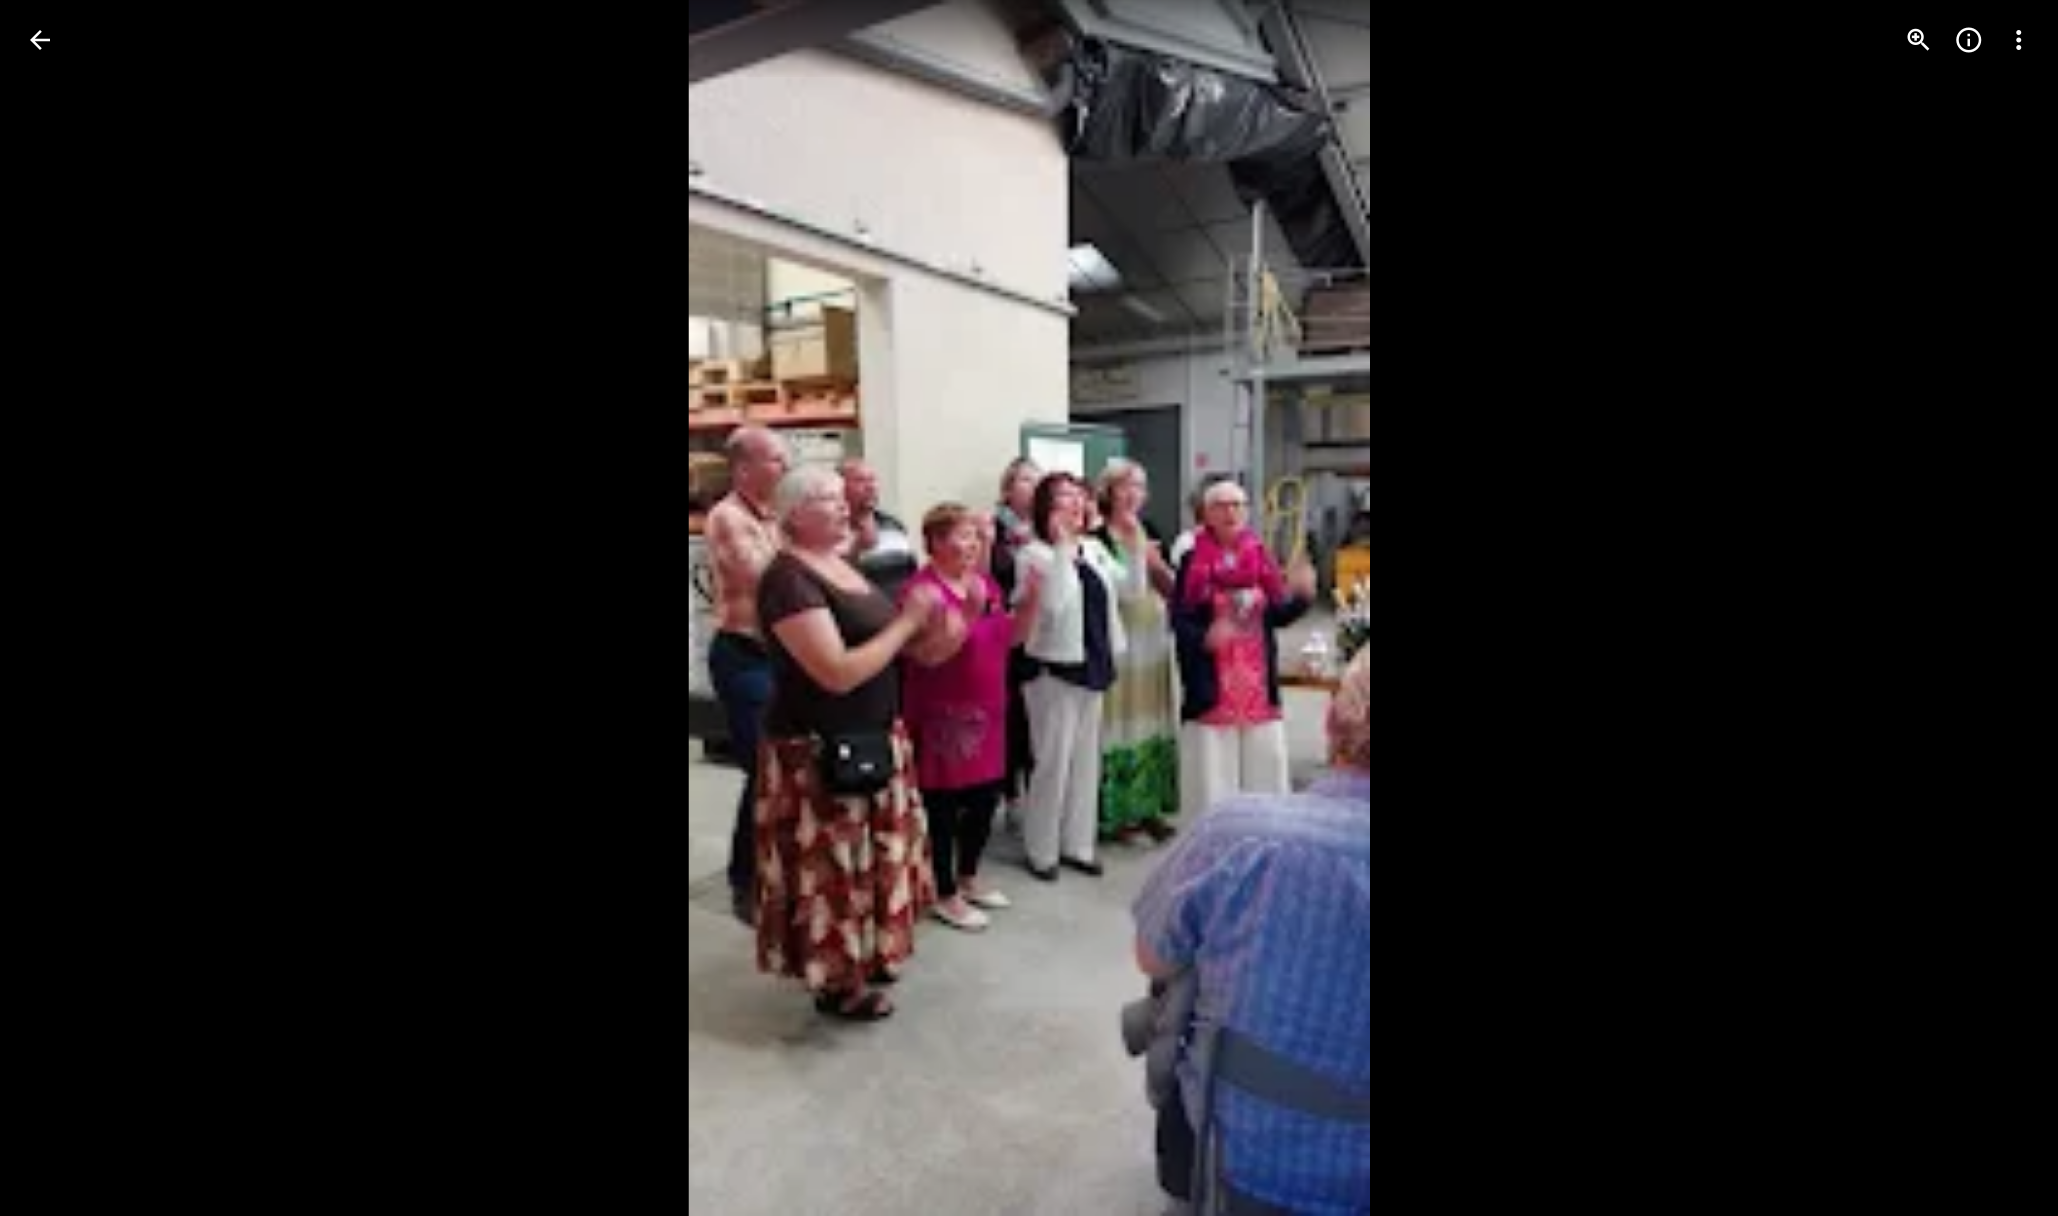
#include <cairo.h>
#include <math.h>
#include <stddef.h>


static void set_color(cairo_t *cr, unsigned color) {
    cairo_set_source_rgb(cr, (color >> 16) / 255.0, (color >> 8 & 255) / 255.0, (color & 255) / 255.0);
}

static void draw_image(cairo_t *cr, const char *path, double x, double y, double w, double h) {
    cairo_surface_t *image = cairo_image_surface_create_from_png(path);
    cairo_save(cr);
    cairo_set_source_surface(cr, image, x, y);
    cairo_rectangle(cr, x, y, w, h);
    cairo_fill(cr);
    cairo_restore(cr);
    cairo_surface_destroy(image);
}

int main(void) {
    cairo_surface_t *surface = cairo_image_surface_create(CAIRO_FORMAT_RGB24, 2058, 1216);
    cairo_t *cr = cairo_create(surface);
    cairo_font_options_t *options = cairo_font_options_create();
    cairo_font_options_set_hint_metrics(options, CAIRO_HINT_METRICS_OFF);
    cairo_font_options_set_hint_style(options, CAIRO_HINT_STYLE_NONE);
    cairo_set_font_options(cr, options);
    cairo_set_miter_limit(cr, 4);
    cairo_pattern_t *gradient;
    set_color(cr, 0x000000);
    cairo_paint(cr);
    draw_image(cr, "assets/img5.png", 688, 0, 682, 1216);
    gradient = cairo_pattern_create_linear(1029, 0, 1029, 80);
    cairo_pattern_add_color_stop_rgba(gradient, 0, 0, 0, 0, 0.6);
    cairo_pattern_add_color_stop_rgba(gradient, 1, 0, 0, 0, 0);
    cairo_set_source(cr, gradient);
    cairo_pattern_destroy(gradient);
    cairo_rectangle(cr, 688, 0, 682, 77);
    cairo_fill(cr);
    draw_image(cr, "assets/img1.png", 30, 30, 20, 20);
    draw_image(cr, "assets/img2.png", 1907, 28, 23, 23);
    draw_image(cr, "assets/img3.png", 1956, 27, 26, 26);
    draw_image(cr, "assets/img4.png", 2016, 30, 6, 20);
    cairo_surface_write_to_png(surface, "output.png");
    cairo_font_options_destroy(options);
    cairo_destroy(cr);
    cairo_surface_destroy(surface);
    return 0;
}
